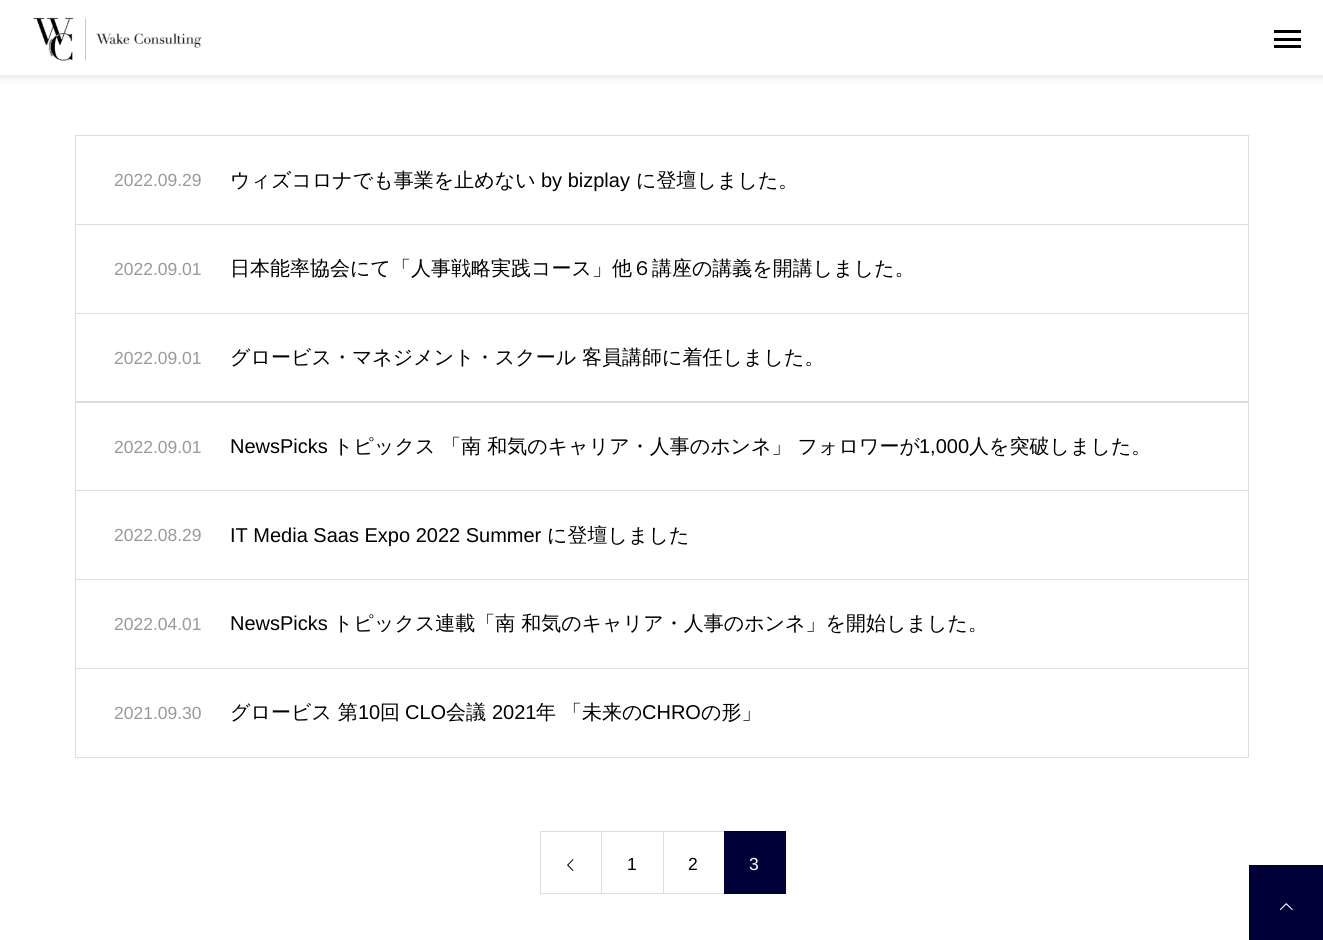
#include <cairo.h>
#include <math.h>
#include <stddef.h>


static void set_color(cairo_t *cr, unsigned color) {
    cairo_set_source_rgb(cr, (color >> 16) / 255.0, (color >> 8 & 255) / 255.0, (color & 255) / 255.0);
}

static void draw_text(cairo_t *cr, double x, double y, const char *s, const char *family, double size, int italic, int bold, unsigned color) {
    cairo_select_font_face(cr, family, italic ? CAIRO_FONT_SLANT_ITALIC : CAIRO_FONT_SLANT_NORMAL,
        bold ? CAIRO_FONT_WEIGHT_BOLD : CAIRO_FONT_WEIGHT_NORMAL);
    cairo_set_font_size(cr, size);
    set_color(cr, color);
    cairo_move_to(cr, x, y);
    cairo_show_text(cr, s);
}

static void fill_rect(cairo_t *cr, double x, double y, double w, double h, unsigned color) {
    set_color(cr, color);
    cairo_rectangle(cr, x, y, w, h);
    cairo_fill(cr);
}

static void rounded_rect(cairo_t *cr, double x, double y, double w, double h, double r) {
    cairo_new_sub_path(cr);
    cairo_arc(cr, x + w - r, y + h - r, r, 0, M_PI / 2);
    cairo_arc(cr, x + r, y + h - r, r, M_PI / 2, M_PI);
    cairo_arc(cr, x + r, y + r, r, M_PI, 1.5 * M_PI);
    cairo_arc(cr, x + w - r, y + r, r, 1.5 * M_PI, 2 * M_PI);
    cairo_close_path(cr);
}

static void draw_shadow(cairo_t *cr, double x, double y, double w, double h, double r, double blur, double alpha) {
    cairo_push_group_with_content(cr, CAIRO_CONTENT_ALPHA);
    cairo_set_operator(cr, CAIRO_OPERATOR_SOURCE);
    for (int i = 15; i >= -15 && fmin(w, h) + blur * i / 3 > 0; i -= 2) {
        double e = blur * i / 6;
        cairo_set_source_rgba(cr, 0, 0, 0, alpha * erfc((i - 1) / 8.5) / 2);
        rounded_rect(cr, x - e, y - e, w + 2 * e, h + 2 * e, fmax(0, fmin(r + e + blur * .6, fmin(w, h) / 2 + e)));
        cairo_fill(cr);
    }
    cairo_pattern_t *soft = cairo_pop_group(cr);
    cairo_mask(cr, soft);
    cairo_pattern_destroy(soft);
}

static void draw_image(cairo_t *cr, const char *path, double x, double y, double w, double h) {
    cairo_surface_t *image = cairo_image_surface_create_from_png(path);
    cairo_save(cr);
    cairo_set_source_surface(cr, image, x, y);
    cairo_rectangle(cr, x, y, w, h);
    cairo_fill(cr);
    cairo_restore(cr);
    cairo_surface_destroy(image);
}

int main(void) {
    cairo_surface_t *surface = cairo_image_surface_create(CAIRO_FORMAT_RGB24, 1323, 940);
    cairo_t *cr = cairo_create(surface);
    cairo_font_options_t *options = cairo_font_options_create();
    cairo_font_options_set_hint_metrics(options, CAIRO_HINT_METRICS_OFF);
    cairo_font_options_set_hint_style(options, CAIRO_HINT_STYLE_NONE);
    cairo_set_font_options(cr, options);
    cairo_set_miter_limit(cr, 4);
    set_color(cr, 0xFFFFFF);
    cairo_paint(cr);
    set_color(cr, 0x000000);
    draw_shadow(cr, 0, 0, 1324, 75, 0, 6, 0.15);
    fill_rect(cr, 0, 0, 1323, 75, 0xFFFFFF);
    draw_image(cr, "assets/img1.png", 33, 17, 169, 44);
    fill_rect(cr, 1274, 30, 27, 3, 0x000000);
    fill_rect(cr, 1274, 38, 27, 3, 0x000000);
    fill_rect(cr, 1274, 45, 27, 3, 0x000000);
    cairo_rectangle(cr, 75.5, 135.5, 1173, 89);
    set_color(cr, 0xDDDDDD);
    cairo_set_line_width(cr, 1);
    cairo_stroke(cr);
    draw_text(cr, 114, 186, "2022.09.29", "Liberation Sans", 17.5, 0, 0, 0x999999);
    draw_text(cr, 230, 187, "ウィズコロナでも事業を止めない", "WenQuanYi Zen Hei Medium", 20, 0, 0, 0x000000);
    draw_text(cr, 541, 187, "by bizplay", "Liberation Sans", 20, 0, 0, 0x000000);
    draw_text(cr, 636, 187, "に登壇しました。", "WenQuanYi Zen Hei Medium", 20, 0, 0, 0x000000);
    cairo_rectangle(cr, 75.5, 224.5, 1173, 89);
    set_color(cr, 0xDDDDDD);
    cairo_stroke(cr);
    draw_text(cr, 114, 275, "2022.09.01", "Liberation Sans", 17.5, 0, 0, 0x999999);
    draw_text(cr, 230, 275, "日本能率協会にて「人事戦略実践コース」他６講座の講義を開講しました。", "WenQuanYi Zen Hei Medium", 20, 0, 0, 0x000000);
    cairo_rectangle(cr, 75.5, 313.5, 1173, 89);
    set_color(cr, 0xDDDDDD);
    cairo_stroke(cr);
    draw_text(cr, 114, 364, "2022.09.01", "Liberation Sans", 17.5, 0, 0, 0x999999);
    draw_text(cr, 230, 364, "グロービス・マネジメント・スクール 客員講師に着任しました。", "WenQuanYi Zen Hei Medium", 20, 0, 0, 0x000000);
    cairo_rectangle(cr, 75.5, 401.5, 1173, 89);
    set_color(cr, 0xDDDDDD);
    cairo_stroke(cr);
    draw_text(cr, 114, 453, "2022.09.01", "Liberation Sans", 17.5, 0, 0, 0x999999);
    draw_text(cr, 230, 453, "NewsPicks", "Liberation Sans", 20, 0, 0, 0x000000);
    draw_text(cr, 333, 453, "トピックス 「南 和気のキャリア・人事のホンネ」 フォロワーが", "WenQuanYi Zen Hei Medium", 20, 0, 0, 0x000000);
    draw_text(cr, 919, 453, "1,000", "Liberation Sans", 20, 0, 0, 0x000000);
    draw_text(cr, 969, 453, "人を突破しました。", "WenQuanYi Zen Hei Medium", 20, 0, 0, 0x000000);
    cairo_rectangle(cr, 75.5, 490.5, 1173, 89);
    set_color(cr, 0xDDDDDD);
    cairo_stroke(cr);
    draw_text(cr, 114, 541, "2022.08.29", "Liberation Sans", 17.5, 0, 0, 0x999999);
    draw_text(cr, 230, 542, "IT Media Saas Expo 2022 Summer", "Liberation Sans", 20, 0, 0, 0x000000);
    draw_text(cr, 547, 542, "に登壇しました", "WenQuanYi Zen Hei Medium", 20, 0, 0, 0x000000);
    cairo_rectangle(cr, 75.5, 579.5, 1173, 89);
    set_color(cr, 0xDDDDDD);
    cairo_stroke(cr);
    draw_text(cr, 114, 630, "2022.04.01", "Liberation Sans", 17.5, 0, 0, 0x999999);
    draw_text(cr, 230, 630, "NewsPicks", "Liberation Sans", 20, 0, 0, 0x000000);
    draw_text(cr, 333, 630, "トピックス連載「南 和気のキャリア・人事のホンネ」を開始しました。", "WenQuanYi Zen Hei Medium", 20, 0, 0, 0x000000);
    cairo_rectangle(cr, 75.5, 668.5, 1173, 89);
    set_color(cr, 0xDDDDDD);
    cairo_stroke(cr);
    draw_text(cr, 114, 719, "2021.09.30", "Liberation Sans", 17.5, 0, 0, 0x999999);
    draw_text(cr, 230, 719, "グロービス 第", "WenQuanYi Zen Hei Medium", 20, 0, 0, 0x000000);
    draw_text(cr, 358, 719, "10", "Liberation Sans", 20, 0, 0, 0x000000);
    draw_text(cr, 380, 719, "回", "WenQuanYi Zen Hei Medium", 20, 0, 0, 0x000000);
    draw_text(cr, 405, 719, "CLO", "Liberation Sans", 20, 0, 0, 0x000000);
    draw_text(cr, 446, 719, "会議", "WenQuanYi Zen Hei Medium", 20, 0, 0, 0x000000);
    draw_text(cr, 492, 719, "2021", "Liberation Sans", 20, 0, 0, 0x000000);
    draw_text(cr, 536, 719, "年 「未来の", "WenQuanYi Zen Hei Medium", 20, 0, 0, 0x000000);
    draw_text(cr, 642, 719, "CHRO", "Liberation Sans", 20, 0, 0, 0x000000);
    draw_text(cr, 701, 719, "の形」", "WenQuanYi Zen Hei Medium", 20, 0, 0, 0x000000);
    cairo_rectangle(cr, 540.5, 831.5, 62, 62);
    set_color(cr, 0xDDDDDD);
    cairo_stroke(cr);
    draw_image(cr, "assets/img2.png", 567, 859, 7, 12);
    fill_rect(cr, 602, 832, 1, 61, 0xFFFFFF);
    cairo_rectangle(cr, 601.5, 831.5, 62, 62);
    set_color(cr, 0xDDDDDD);
    cairo_stroke(cr);
    draw_text(cr, 627, 870, "1", "Liberation Sans", 17.5, 0, 0, 0x000000);
    cairo_rectangle(cr, 663.5, 831.5, 61, 62);
    set_color(cr, 0xDDDDDD);
    cairo_stroke(cr);
    draw_text(cr, 688, 870, "2", "Liberation Sans", 17.5, 0, 0, 0x000000);
    fill_rect(cr, 724, 831, 62, 63, 0x000038);
    draw_text(cr, 749, 870, "3", "Liberation Sans", 17.5, 0, 0, 0xFFFFFF);
    fill_rect(cr, 1249, 865, 74, 75, 0x000038);
    draw_image(cr, "assets/img3.png", 1279, 903, 14, 7);
    cairo_surface_write_to_png(surface, "output.png");
    cairo_font_options_destroy(options);
    cairo_destroy(cr);
    cairo_surface_destroy(surface);
    return 0;
}
